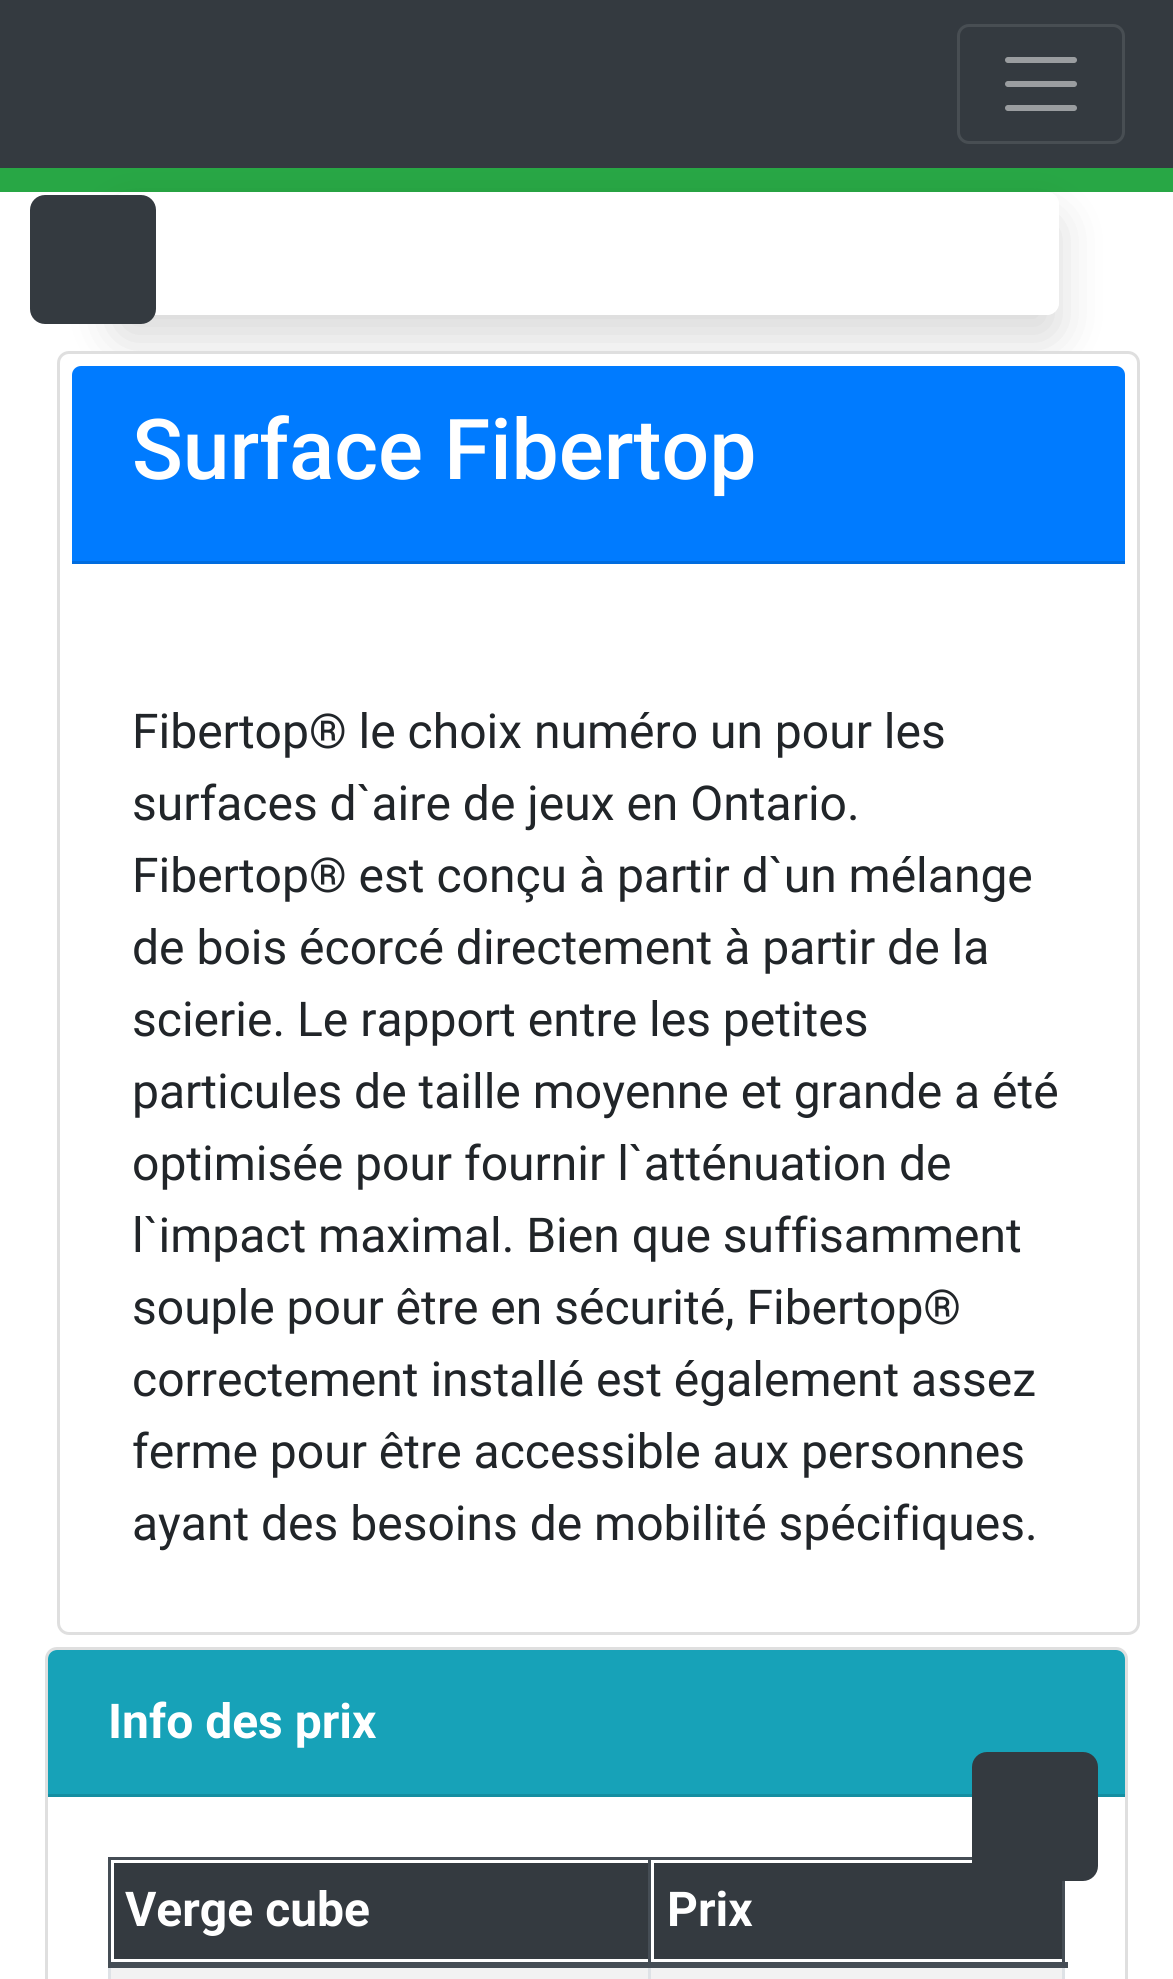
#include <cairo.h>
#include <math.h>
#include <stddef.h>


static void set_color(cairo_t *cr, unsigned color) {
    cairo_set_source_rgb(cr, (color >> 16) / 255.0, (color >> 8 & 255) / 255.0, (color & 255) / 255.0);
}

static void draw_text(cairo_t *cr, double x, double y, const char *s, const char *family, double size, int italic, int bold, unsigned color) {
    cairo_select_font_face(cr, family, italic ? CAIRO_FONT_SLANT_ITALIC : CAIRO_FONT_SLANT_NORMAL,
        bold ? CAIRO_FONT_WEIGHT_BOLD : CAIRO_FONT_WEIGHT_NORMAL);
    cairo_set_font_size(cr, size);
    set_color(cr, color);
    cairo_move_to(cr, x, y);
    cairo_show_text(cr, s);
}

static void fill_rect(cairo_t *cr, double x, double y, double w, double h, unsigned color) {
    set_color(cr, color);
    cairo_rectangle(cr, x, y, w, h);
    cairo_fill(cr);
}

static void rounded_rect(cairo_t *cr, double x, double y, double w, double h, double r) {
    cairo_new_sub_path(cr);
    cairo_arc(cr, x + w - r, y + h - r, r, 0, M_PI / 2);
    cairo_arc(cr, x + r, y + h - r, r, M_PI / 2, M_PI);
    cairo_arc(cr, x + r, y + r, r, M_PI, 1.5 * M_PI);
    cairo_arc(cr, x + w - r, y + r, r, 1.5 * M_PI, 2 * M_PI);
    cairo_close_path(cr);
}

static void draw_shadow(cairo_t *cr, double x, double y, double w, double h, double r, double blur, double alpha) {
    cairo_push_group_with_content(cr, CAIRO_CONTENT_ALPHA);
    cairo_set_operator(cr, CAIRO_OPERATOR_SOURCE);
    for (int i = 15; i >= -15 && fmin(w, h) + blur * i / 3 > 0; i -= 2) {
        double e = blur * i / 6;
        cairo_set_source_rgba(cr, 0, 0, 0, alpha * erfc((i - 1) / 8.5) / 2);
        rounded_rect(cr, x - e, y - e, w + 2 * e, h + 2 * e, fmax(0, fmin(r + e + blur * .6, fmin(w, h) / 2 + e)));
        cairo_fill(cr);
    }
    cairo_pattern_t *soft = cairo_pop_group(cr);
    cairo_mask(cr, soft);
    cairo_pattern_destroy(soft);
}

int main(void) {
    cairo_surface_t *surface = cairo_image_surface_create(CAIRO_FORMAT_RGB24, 1173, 1979);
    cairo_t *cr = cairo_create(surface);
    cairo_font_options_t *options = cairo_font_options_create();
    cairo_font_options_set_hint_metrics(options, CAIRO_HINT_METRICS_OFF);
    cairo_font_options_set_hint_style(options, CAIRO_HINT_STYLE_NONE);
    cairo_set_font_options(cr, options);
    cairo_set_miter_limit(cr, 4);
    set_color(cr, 0xFFFFFF);
    cairo_paint(cr);
    fill_rect(cr, 0, 168, 1173, 24, 0x28A745);
    cairo_save(cr);
    cairo_set_fill_rule(cr, CAIRO_FILL_RULE_EVEN_ODD);
    cairo_new_path(cr);
    cairo_move_to(cr, 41, 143);
    cairo_line_to(cr, 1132, 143);
    cairo_line_to(cr, 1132, 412);
    cairo_line_to(cr, 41, 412);
    cairo_close_path(cr);
    cairo_move_to(cr, 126, 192);
    cairo_line_to(cr, 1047, 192);
    cairo_curve_to(cr, 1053.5, 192, 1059, 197.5, 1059, 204);
    cairo_line_to(cr, 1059, 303);
    cairo_curve_to(cr, 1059, 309.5, 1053.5, 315, 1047, 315);
    cairo_line_to(cr, 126, 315);
    cairo_curve_to(cr, 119.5, 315, 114, 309.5, 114, 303);
    cairo_line_to(cr, 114, 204);
    cairo_curve_to(cr, 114, 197.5, 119.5, 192, 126, 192);
    cairo_close_path(cr);
    cairo_clip(cr);
    set_color(cr, 0x000000);
    draw_shadow(cr, 114, 216, 945, 123, 12, 24, 0.15);
    cairo_restore(cr);
    fill_rect(cr, 0, 0, 1173, 168, 0x343A40);
    rounded_rect(cr, 958.5, 25.5, 165, 117, 10.5);
    set_color(cr, 0x484E53);
    cairo_set_line_width(cr, 3);
    cairo_stroke(cr);
    cairo_new_path(cr);
    cairo_move_to(cr, 1008, 60);
    cairo_line_to(cr, 1074, 60);
    cairo_move_to(cr, 1008, 84);
    cairo_line_to(cr, 1074, 84);
    cairo_move_to(cr, 1008, 108);
    cairo_line_to(cr, 1074, 108);
    set_color(cr, 0x9A9DA0);
    cairo_set_line_width(cr, 6);
    cairo_set_line_cap(cr, CAIRO_LINE_CAP_ROUND);
    cairo_stroke(cr);
    set_color(cr, 0x343A40);
    rounded_rect(cr, 31.5, 196.5, 123, 126, 13.5);
    cairo_fill_preserve(cr);
    cairo_set_line_width(cr, 3);
    cairo_set_line_cap(cr, CAIRO_LINE_CAP_BUTT);
    cairo_stroke(cr);
    set_color(cr, 0xFFFFFF);
    rounded_rect(cr, 58.5, 352.5, 1080, 1281, 10.5);
    cairo_fill_preserve(cr);
    set_color(cr, 0xDFDFDF);
    cairo_stroke(cr);
    set_color(cr, 0x007BFF);
    cairo_new_path(cr);
    cairo_move_to(cr, 81, 366);
    cairo_line_to(cr, 1116, 366);
    cairo_curve_to(cr, 1121, 366, 1125, 370, 1125, 375);
    cairo_line_to(cr, 1125, 564);
    cairo_line_to(cr, 72, 564);
    cairo_line_to(cr, 72, 375);
    cairo_curve_to(cr, 72, 370, 76, 366, 81, 366);
    cairo_close_path(cr);
    cairo_fill(cr);
    fill_rect(cr, 72, 561, 1053, 3, 0x006CDF);
    draw_text(cr, 132, 479, "Surface Fibertop", "Roboto Medium", 84, 0, 0, 0xFFFFFF);
    draw_text(cr, 132, 748, "Fibertop® le choix numéro un pour les", "Roboto", 48, 0, 0, 0x212529);
    draw_text(cr, 132, 820, "surfaces d`aire de jeux en Ontario.", "Roboto", 48, 0, 0, 0x212529);
    draw_text(cr, 132, 892, "Fibertop® est conçu à partir d`un mélange", "Roboto", 48, 0, 0, 0x212529);
    draw_text(cr, 132, 964, "de bois écorcé directement à partir de la", "Roboto", 48, 0, 0, 0x212529);
    draw_text(cr, 132, 1036, "scierie. Le rapport entre les petites", "Roboto", 48, 0, 0, 0x212529);
    draw_text(cr, 132, 1108, "particules de taille moyenne et grande a été", "Roboto", 48, 0, 0, 0x212529);
    draw_text(cr, 132, 1180, "optimisée pour fournir l`atténuation de", "Roboto", 48, 0, 0, 0x212529);
    draw_text(cr, 132, 1252, "l`impact maximal. Bien que suffisamment", "Roboto", 48, 0, 0, 0x212529);
    draw_text(cr, 132, 1324, "souple pour être en sécurité, Fibertop®", "Roboto", 48, 0, 0, 0x212529);
    draw_text(cr, 132, 1396, "correctement installé est également assez", "Roboto", 48, 0, 0, 0x212529);
    draw_text(cr, 132, 1468, "ferme pour être accessible aux personnes", "Roboto", 48, 0, 0, 0x212529);
    draw_text(cr, 132, 1540, "ayant des besoins de mobilité spécifiques.", "Roboto", 48, 0, 0, 0x212529);
    rounded_rect(cr, 46.5, 1648.5, 1080, 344, 10.5);
    set_color(cr, 0xDFDFDF);
    cairo_stroke(cr);
    set_color(cr, 0x17A2B8);
    cairo_new_path(cr);
    cairo_move_to(cr, 57, 1650);
    cairo_line_to(cr, 1116, 1650);
    cairo_curve_to(cr, 1121, 1650, 1125, 1654, 1125, 1659);
    cairo_line_to(cr, 1125, 1797);
    cairo_line_to(cr, 48, 1797);
    cairo_line_to(cr, 48, 1659);
    cairo_curve_to(cr, 48, 1654, 52, 1650, 57, 1650);
    cairo_close_path(cr);
    cairo_fill(cr);
    fill_rect(cr, 48, 1794, 1077, 3, 0x148EA1);
    draw_text(cr, 108, 1738, "Info des prix", "Roboto", 48, 0, 1, 0xFFFFFF);
    fill_rect(cr, 1062, 1968, 3, 11, 0xDEE2E6);
    fill_rect(cr, 108, 1968, 3, 11, 0xDEE2E6);
    fill_rect(cr, 114, 1863, 534, 96, 0x343A40);
    fill_rect(cr, 648, 1857, 324, 3, 0x454D55);
    fill_rect(cr, 111, 1968, 951, 11, 0xF2F2F2);
    fill_rect(cr, 648, 1962, 3, 17, 0xDEE2E6);
    fill_rect(cr, 648, 1857, 3, 108, 0x454D55);
    fill_rect(cr, 108, 1857, 543, 3, 0x454D55);
    fill_rect(cr, 108, 1857, 3, 108, 0x454D55);
    draw_text(cr, 125, 1926, "Verge cube", "Roboto", 48, 0, 1, 0xFFFFFF);
    fill_rect(cr, 654, 1863, 408, 96, 0x343A40);
    fill_rect(cr, 1062, 1881, 3, 84, 0x454D55);
    fill_rect(cr, 108, 1962, 960, 6, 0x454D55);
    draw_text(cr, 667, 1926, "Prix", "Roboto", 48, 0, 1, 0xFFFFFF);
    set_color(cr, 0x343A40);
    rounded_rect(cr, 973.5, 1753.5, 123, 126, 13.5);
    cairo_fill_preserve(cr);
    cairo_stroke(cr);
    cairo_surface_write_to_png(surface, "output.png");
    cairo_font_options_destroy(options);
    cairo_destroy(cr);
    cairo_surface_destroy(surface);
    return 0;
}
